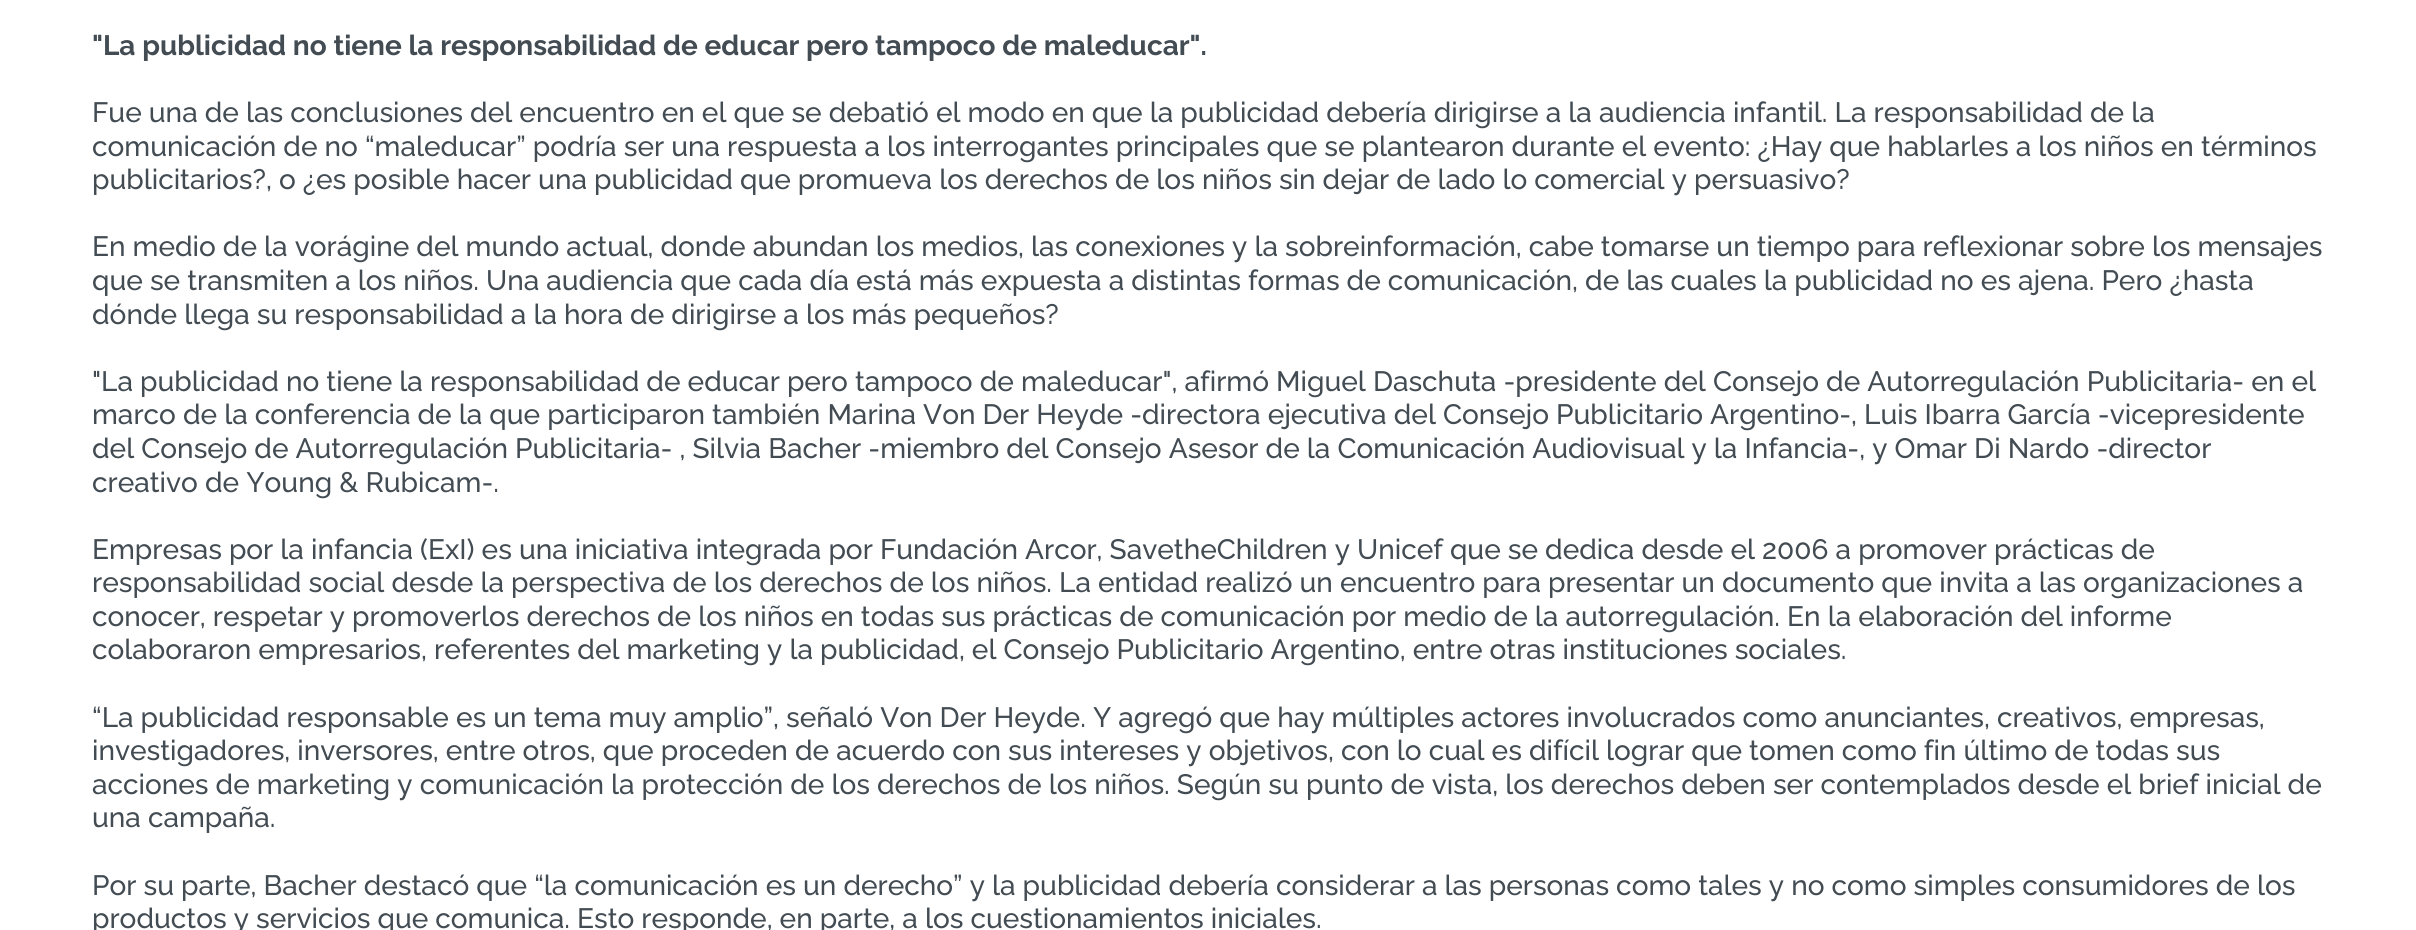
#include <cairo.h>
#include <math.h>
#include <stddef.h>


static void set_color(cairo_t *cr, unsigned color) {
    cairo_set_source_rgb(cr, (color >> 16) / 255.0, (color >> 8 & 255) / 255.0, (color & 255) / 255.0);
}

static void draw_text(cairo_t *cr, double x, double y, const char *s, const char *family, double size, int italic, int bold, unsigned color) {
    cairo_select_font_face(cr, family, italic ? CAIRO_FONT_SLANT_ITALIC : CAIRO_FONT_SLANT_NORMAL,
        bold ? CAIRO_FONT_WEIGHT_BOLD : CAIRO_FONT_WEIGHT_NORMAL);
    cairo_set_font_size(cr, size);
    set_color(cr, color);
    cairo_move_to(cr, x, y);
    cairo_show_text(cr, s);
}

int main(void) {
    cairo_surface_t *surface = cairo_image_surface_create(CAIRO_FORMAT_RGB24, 2416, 930);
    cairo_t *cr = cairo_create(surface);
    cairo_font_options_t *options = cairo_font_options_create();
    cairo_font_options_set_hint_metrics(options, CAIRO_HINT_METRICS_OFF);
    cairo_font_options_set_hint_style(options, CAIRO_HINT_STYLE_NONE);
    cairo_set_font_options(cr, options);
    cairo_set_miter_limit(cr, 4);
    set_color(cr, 0xFFFFFF);
    cairo_paint(cr);
    draw_text(cr, 92, 55, "\"La publicidad no tiene la responsabilidad de educar pero tampoco de maleducar\".", "Raleway", 28, 0, 1, 0x434C53);
    draw_text(cr, 92, 122, "Fue una de las conclusiones del encuentro en el que se debatió el modo en que la publicidad debería dirigirse a la audiencia infantil. La responsabilidad de la", "Raleway Medium", 28, 0, 0, 0x434C53);
    draw_text(cr, 92, 156, "comunicación de no “maleducar” podría ser una respuesta a los interrogantes principales que se plantearon durante el evento: ¿Hay que hablarles a los niños en términos", "Raleway Medium", 28, 0, 0, 0x434C53);
    draw_text(cr, 92, 189, "publicitarios?, o ¿es posible hacer una publicidad que promueva los derechos de los niños sin dejar de lado lo comercial y persuasivo?", "Raleway Medium", 28, 0, 0, 0x434C53);
    draw_text(cr, 92, 256, "En medio de la vorágine del mundo actual, donde abundan los medios, las conexiones y la sobreinformación, cabe tomarse un tiempo para reflexionar sobre los mensajes", "Raleway Medium", 28, 0, 0, 0x434C53);
    draw_text(cr, 92, 290, "que se transmiten a los niños. Una audiencia que cada día está más expuesta a distintas formas de comunicación, de las cuales la publicidad no es ajena. Pero ¿hasta", "Raleway Medium", 28, 0, 0, 0x434C53);
    draw_text(cr, 92, 324, "dónde llega su responsabilidad a la hora de dirigirse a los más pequeños?", "Raleway Medium", 28, 0, 0, 0x434C53);
    draw_text(cr, 92, 391, "\"La publicidad no tiene la responsabilidad de educar pero tampoco de maleducar\", afirmó Miguel Daschuta -presidente del Consejo de Autorregulación Publicitaria- en el", "Raleway Medium", 28, 0, 0, 0x434C53);
    draw_text(cr, 92, 424, "marco de la conferencia de la que participaron también Marina Von Der Heyde -directora ejecutiva del Consejo Publicitario Argentino-, Luis Ibarra García -vicepresidente", "Raleway Medium", 28, 0, 0, 0x434C53);
    draw_text(cr, 92, 458, "del Consejo de Autorregulación Publicitaria- , Silvia Bacher -miembro del Consejo Asesor de la Comunicación Audiovisual y la Infancia-, y Omar Di Nardo -director", "Raleway Medium", 28, 0, 0, 0x434C53);
    draw_text(cr, 92, 492, "creativo de Young & Rubicam-.", "Raleway Medium", 28, 0, 0, 0x434C53);
    draw_text(cr, 92, 559, "Empresas por la infancia (ExI) es una iniciativa integrada por Fundación Arcor, SavetheChildren y Unicef que se dedica desde el 2006 a promover prácticas de", "Raleway Medium", 28, 0, 0, 0x434C53);
    draw_text(cr, 92, 592, "responsabilidad social desde la perspectiva de los derechos de los niños. La entidad realizó un encuentro para presentar un documento que invita a las organizaciones a", "Raleway Medium", 28, 0, 0, 0x434C53);
    draw_text(cr, 92, 626, "conocer, respetar y promoverlos derechos de los niños en todas sus prácticas de comunicación por medio de la autorregulación. En la elaboración del informe", "Raleway Medium", 28, 0, 0, 0x434C53);
    draw_text(cr, 92, 659, "colaboraron empresarios, referentes del marketing y la publicidad, el Consejo Publicitario Argentino, entre otras instituciones sociales.", "Raleway Medium", 28, 0, 0, 0x434C53);
    draw_text(cr, 92, 727, "“La publicidad responsable es un tema muy amplio”, señaló Von Der Heyde. Y agregó que hay múltiples actores involucrados como anunciantes, creativos, empresas,", "Raleway Medium", 28, 0, 0, 0x434C53);
    draw_text(cr, 92, 760, "investigadores, inversores, entre otros, que proceden de acuerdo con sus intereses y objetivos, con lo cual es difícil lograr que tomen como fin último de todas sus", "Raleway Medium", 28, 0, 0, 0x434C53);
    draw_text(cr, 92, 794, "acciones de marketing y comunicación la protección de los derechos de los niños. Según su punto de vista, los derechos deben ser contemplados desde el brief inicial de", "Raleway Medium", 28, 0, 0, 0x434C53);
    draw_text(cr, 92, 827, "una campaña.", "Raleway Medium", 28, 0, 0, 0x434C53);
    draw_text(cr, 92, 895, "Por su parte, Bacher destacó que “la comunicación es un derecho” y la publicidad debería considerar a las personas como tales y no como simples consumidores de los", "Raleway Medium", 28, 0, 0, 0x434C53);
    draw_text(cr, 92, 928, "productos y servicios que comunica. Esto responde, en parte, a los cuestionamientos iniciales.", "Raleway Medium", 28, 0, 0, 0x434C53);
    cairo_surface_write_to_png(surface, "output.png");
    cairo_font_options_destroy(options);
    cairo_destroy(cr);
    cairo_surface_destroy(surface);
    return 0;
}
